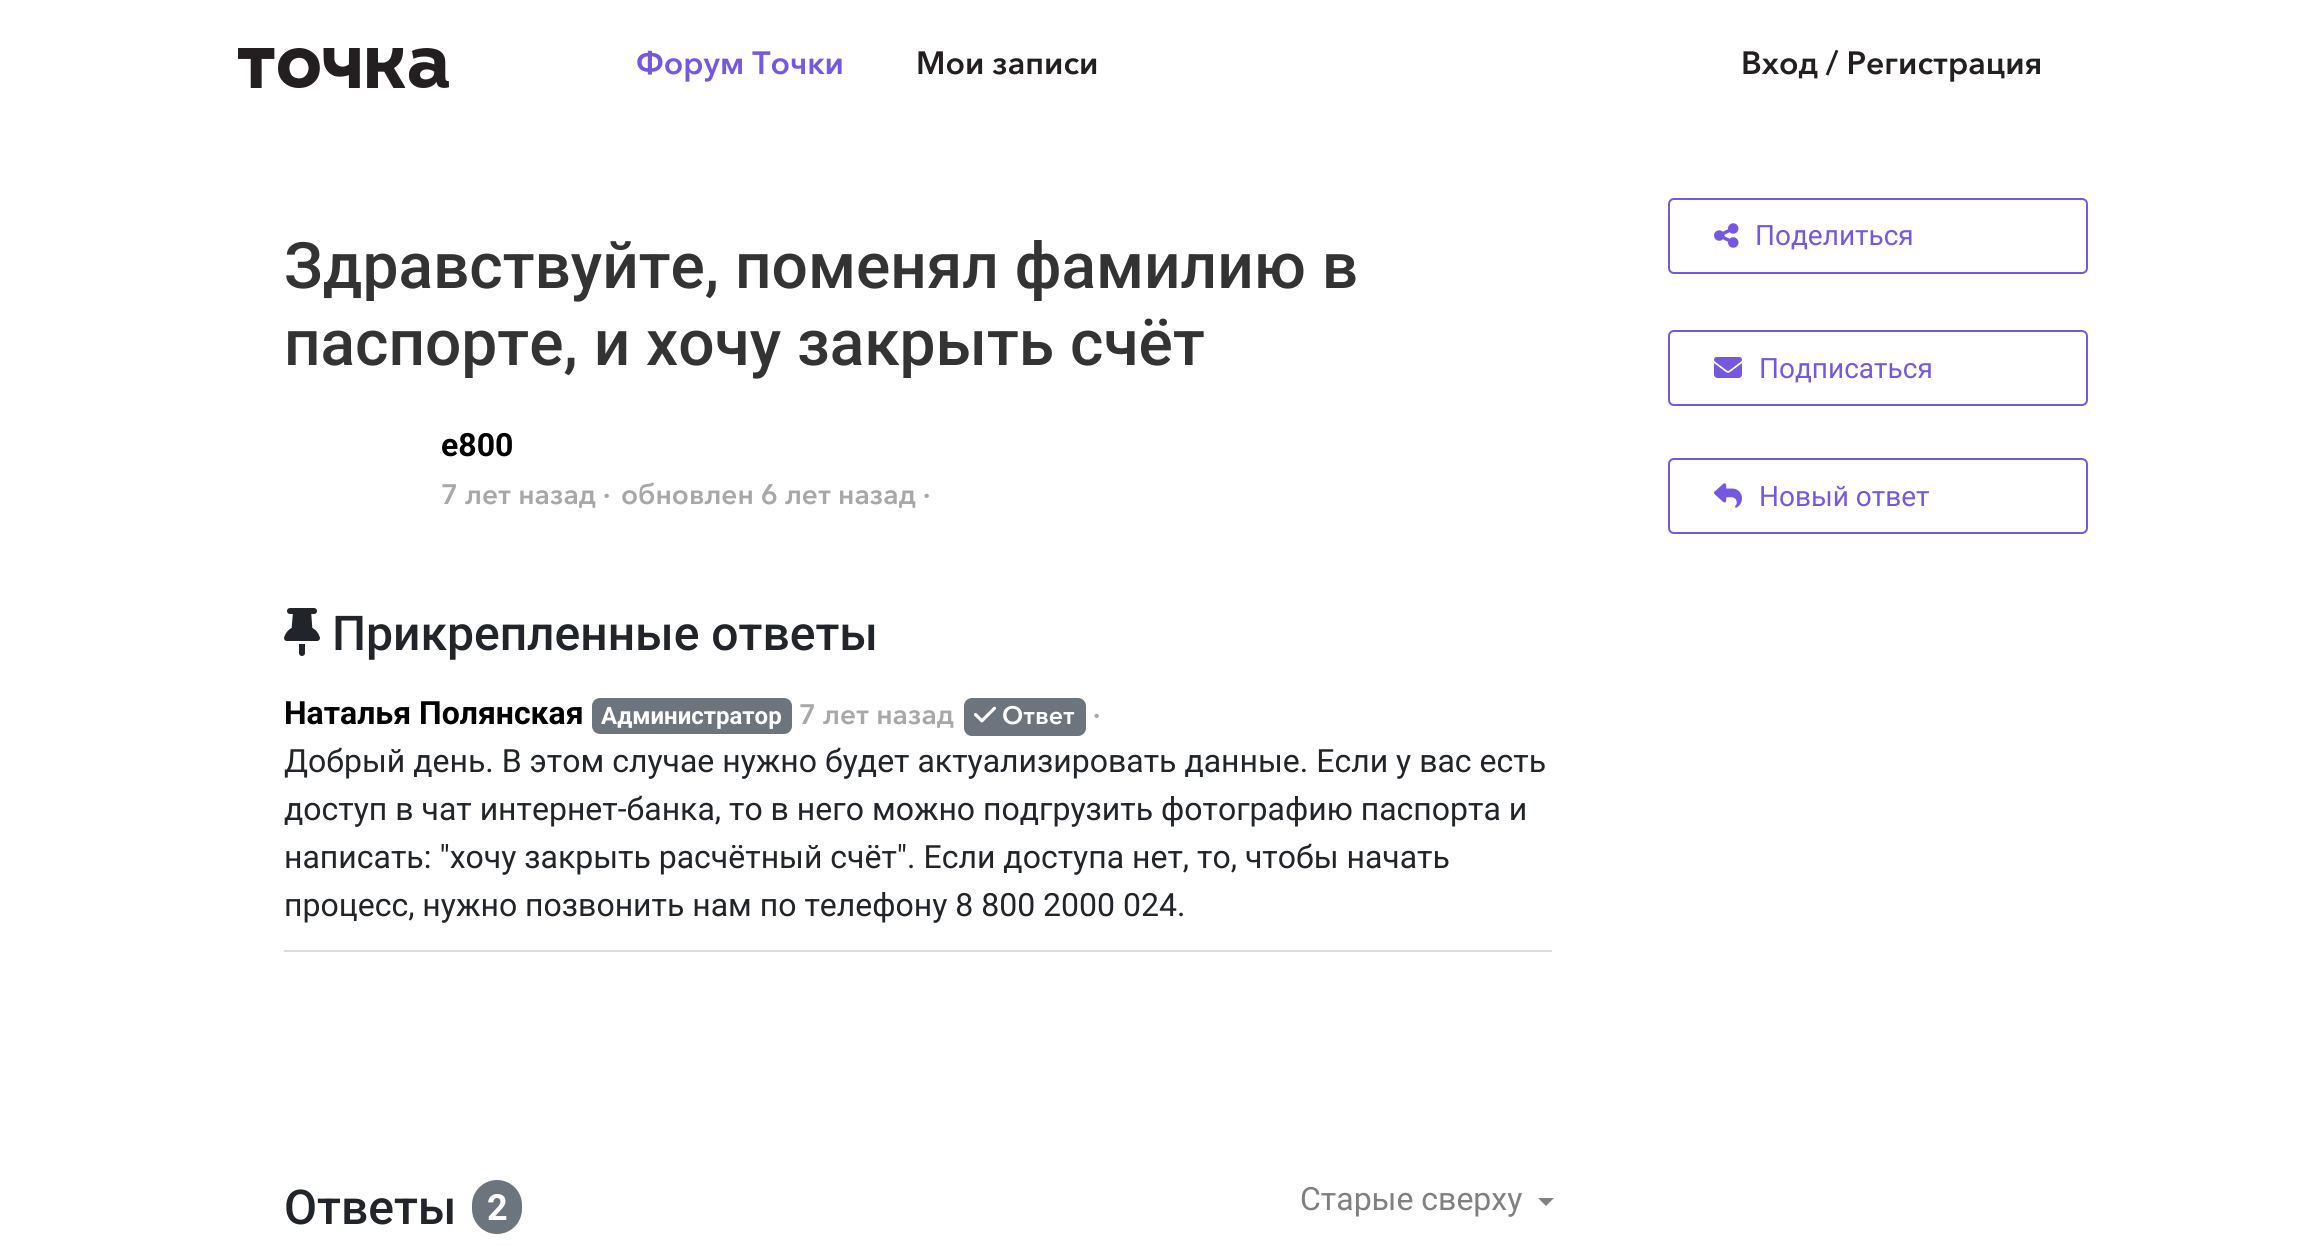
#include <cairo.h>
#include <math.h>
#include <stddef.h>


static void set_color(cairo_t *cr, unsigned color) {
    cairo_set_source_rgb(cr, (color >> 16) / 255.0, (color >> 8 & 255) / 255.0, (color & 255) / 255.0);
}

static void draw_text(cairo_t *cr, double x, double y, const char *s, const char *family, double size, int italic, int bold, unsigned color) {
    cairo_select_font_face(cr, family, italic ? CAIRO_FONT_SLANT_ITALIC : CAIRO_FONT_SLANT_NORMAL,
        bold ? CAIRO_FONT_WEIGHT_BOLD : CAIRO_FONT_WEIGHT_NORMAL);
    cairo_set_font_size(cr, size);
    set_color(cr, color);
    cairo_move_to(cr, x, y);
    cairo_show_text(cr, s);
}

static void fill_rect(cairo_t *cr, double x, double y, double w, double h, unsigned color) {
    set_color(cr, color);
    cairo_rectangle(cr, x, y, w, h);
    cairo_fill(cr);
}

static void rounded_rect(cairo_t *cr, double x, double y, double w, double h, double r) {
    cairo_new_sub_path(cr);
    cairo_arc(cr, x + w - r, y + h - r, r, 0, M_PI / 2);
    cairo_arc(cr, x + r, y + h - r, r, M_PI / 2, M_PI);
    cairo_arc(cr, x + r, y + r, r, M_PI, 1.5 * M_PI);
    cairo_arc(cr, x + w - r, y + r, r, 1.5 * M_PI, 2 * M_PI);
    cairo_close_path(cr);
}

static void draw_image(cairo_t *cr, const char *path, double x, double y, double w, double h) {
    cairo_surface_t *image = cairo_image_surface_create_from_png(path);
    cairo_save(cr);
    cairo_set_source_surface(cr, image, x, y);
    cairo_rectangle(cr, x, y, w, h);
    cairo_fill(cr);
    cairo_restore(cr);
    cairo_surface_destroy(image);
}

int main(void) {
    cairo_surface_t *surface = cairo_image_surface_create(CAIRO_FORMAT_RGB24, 2316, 1246);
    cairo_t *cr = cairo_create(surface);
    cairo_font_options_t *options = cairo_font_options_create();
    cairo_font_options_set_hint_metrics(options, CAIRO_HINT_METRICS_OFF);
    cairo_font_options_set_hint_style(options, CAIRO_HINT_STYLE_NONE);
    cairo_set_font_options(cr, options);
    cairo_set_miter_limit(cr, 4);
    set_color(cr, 0xFFFFFF);
    cairo_paint(cr);
    draw_image(cr, "assets/img1.png", 238, 48, 211, 40);
    draw_text(cr, 636, 74, "Форум Точки", "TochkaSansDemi", 32, 0, 1, 0x7658E0);
    draw_text(cr, 916, 74, "Мои записи", "TochkaSansDemi", 32, 0, 1, 0x231F20);
    draw_text(cr, 1741, 74, "Вход / Регистрация", "TochkaSansDemi", 32, 0, 1, 0x231F20);
    draw_text(cr, 284, 288, "Здравствуйте, поменял фамилию в", "Roboto Medium", 64, 0, 0, 0x333333);
    draw_text(cr, 284, 365, "паспорте, и хочу закрыть счёт", "Roboto Medium", 64, 0, 0, 0x333333);
    draw_text(cr, 441, 456, "e800", "Roboto", 32, 0, 1, 0x000000);
    draw_text(cr, 441, 504, "7 лет назад", "TochkaSansDemi", 28, 0, 1, 0xA8A8A8);
    draw_text(cr, 603, 504, "·", "TochkaSansDemi", 28, 0, 1, 0xA8A8A8);
    draw_text(cr, 621, 504, "обновлен 6 лет назад", "TochkaSansDemi", 28, 0, 1, 0xA8A8A8);
    draw_text(cr, 923, 504, "·", "TochkaSansDemi", 28, 0, 1, 0xA8A8A8);
    draw_image(cr, "assets/img2.png", 284, 608, 36, 48);
    draw_text(cr, 332, 650, "Прикрепленные ответы", "Roboto Medium", 48, 0, 0, 0x212529);
    fill_rect(cr, 284, 950, 1268, 2, 0xDDDDDD);
    draw_text(cr, 284, 724, "Наталья Полянская", "Roboto", 32, 0, 1, 0x000000);
    set_color(cr, 0x6C757D);
    rounded_rect(cr, 592, 698, 200, 36, 8);
    cairo_fill(cr);
    draw_text(cr, 601, 724, "Администратор", "Roboto", 24, 0, 1, 0xFFFFFF);
    draw_text(cr, 799, 724, "7 лет назад", "TochkaSansDemi", 28, 0, 1, 0xA8A8A8);
    set_color(cr, 0x6C757D);
    rounded_rect(cr, 964, 698, 122, 38, 8);
    cairo_fill(cr);
    draw_image(cr, "assets/img3.png", 974, 706, 22, 17);
    draw_text(cr, 1002, 724, "Ответ", "TochkaSansDemi", 25, 0, 1, 0xFFFFFF);
    draw_text(cr, 1093, 724, "·", "TochkaSansDemi", 28, 0, 1, 0xA8A8A8);
    draw_text(cr, 284, 772, "Добрый день. В этом случае нужно будет актуализировать данные. Если у вас есть", "Roboto", 32, 0, 0, 0x212529);
    draw_text(cr, 284, 820, "доступ в чат интернет-банка, то в него можно подгрузить фотографию паспорта и", "Roboto", 32, 0, 0, 0x212529);
    draw_text(cr, 284, 868, "написать: \"хочу закрыть расчётный счёт\". Если доступа нет, то, чтобы начать", "Roboto", 32, 0, 0, 0x212529);
    draw_text(cr, 284, 916, "процесс, нужно позвонить нам по телефону 8 800 2000 024.", "Roboto", 32, 0, 0, 0x212529);
    rounded_rect(cr, 1669, 199, 418, 74, 5);
    set_color(cr, 0x7658E0);
    cairo_stroke(cr);
    draw_image(cr, "assets/img4.png", 1714, 223, 25, 25);
    draw_text(cr, 1755, 245, "Поделиться", "Roboto", 28, 0, 0, 0x7658E0);
    rounded_rect(cr, 1669, 331, 418, 74, 5);
    cairo_stroke(cr);
    draw_image(cr, "assets/img5.png", 1714, 357, 28, 21);
    draw_text(cr, 1759, 378, "Подписаться", "Roboto", 28, 0, 0, 0x7658E0);
    rounded_rect(cr, 1669, 459, 418, 74, 5);
    cairo_stroke(cr);
    draw_image(cr, "assets/img6.png", 1714, 483, 28, 25);
    draw_text(cr, 1759, 506, "Новый ответ", "Roboto", 28, 0, 0, 0x7658E0);
    draw_text(cr, 284, 1224, "Ответы", "Roboto Medium", 48, 0, 0, 0x212529);
    set_color(cr, 0x6C757D);
    rounded_rect(cr, 472, 1180, 50, 54, 25);
    cairo_fill(cr);
    draw_text(cr, 487, 1220, "2", "Roboto", 36, 0, 1, 0xFFFFFF);
    draw_text(cr, 1300, 1210, "Старые сверху", "Roboto", 32, 0, 0, 0x808080);
    cairo_new_path(cr);
    cairo_move_to(cr, 1538, 1198);
    cairo_line_to(cr, 1554, 1198);
    cairo_line_to(cr, 1546, 1206);
    cairo_close_path(cr);
    cairo_fill(cr);
    cairo_surface_write_to_png(surface, "output.png");
    cairo_font_options_destroy(options);
    cairo_destroy(cr);
    cairo_surface_destroy(surface);
    return 0;
}
